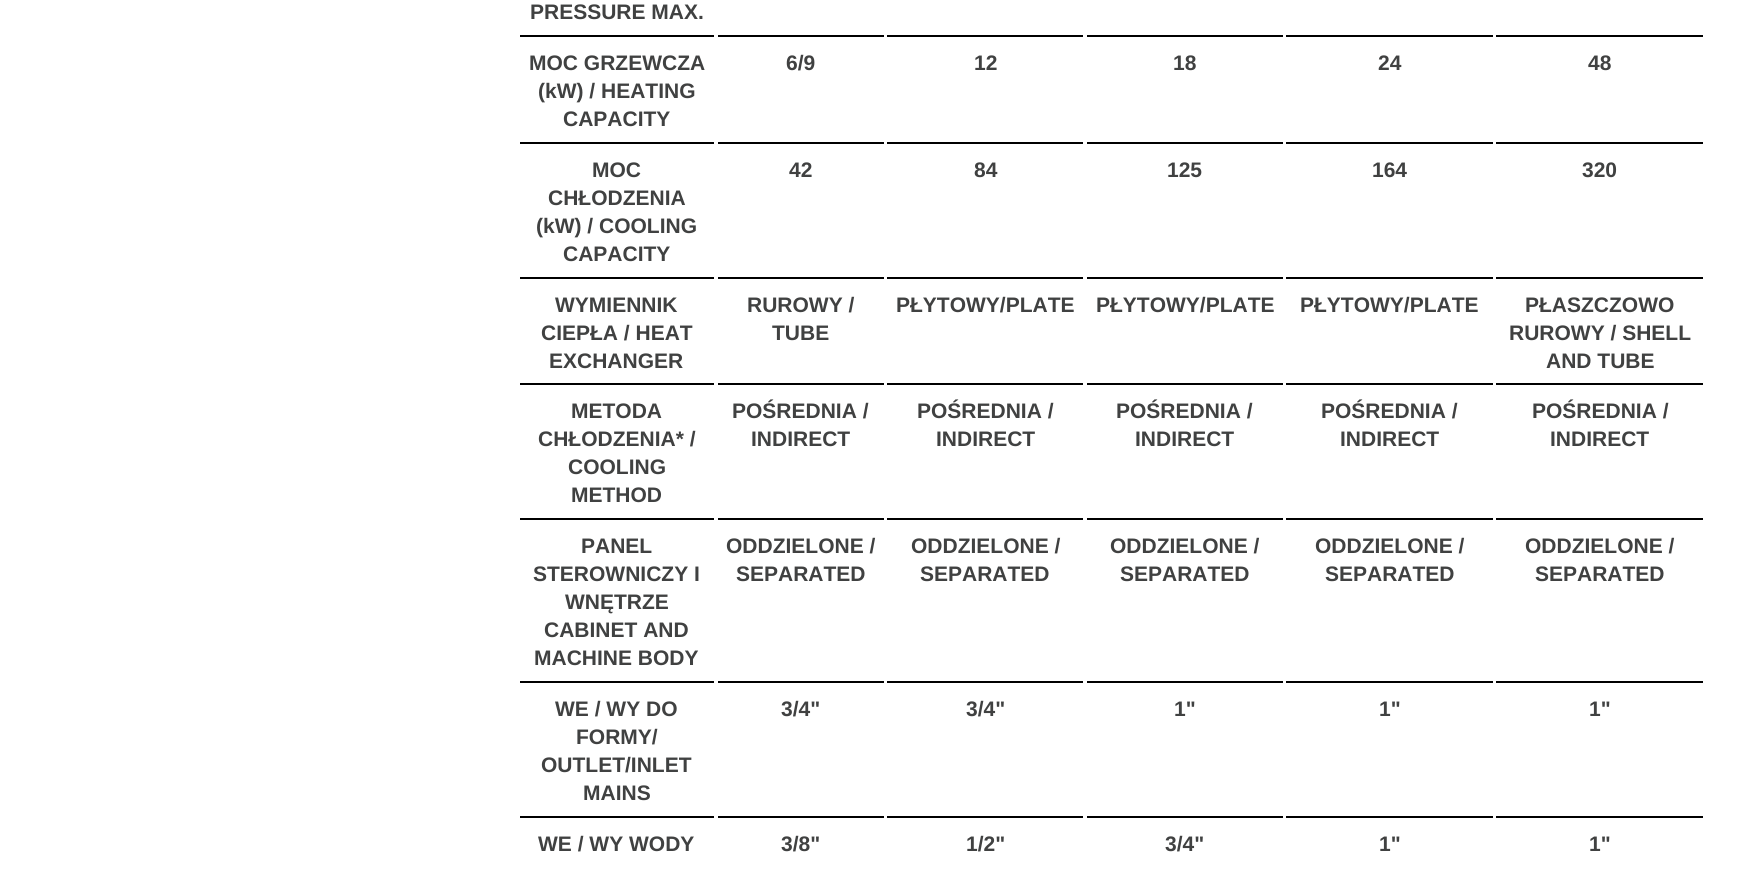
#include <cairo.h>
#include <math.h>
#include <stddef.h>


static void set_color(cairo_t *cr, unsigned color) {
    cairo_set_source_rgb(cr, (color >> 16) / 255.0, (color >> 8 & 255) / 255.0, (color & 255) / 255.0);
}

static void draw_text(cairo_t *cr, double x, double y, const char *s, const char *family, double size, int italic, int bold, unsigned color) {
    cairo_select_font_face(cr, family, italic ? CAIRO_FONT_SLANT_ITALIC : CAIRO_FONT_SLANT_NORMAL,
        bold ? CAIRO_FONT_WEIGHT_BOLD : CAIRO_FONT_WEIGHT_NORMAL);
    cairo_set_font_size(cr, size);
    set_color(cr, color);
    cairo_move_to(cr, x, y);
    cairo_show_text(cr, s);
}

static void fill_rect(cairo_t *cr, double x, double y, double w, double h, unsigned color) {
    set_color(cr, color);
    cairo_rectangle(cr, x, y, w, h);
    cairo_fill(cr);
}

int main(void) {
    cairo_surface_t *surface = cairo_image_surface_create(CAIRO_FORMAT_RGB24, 1740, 875);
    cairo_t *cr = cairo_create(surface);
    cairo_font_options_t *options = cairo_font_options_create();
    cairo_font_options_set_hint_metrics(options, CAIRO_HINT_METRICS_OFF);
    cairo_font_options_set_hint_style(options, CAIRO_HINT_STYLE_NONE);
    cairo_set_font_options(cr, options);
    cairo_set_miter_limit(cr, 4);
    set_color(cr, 0xFFFFFF);
    cairo_paint(cr);
    fill_rect(cr, 520, 35, 194, 2, 0x000000);
    draw_text(cr, 530, 19, "PRESSURE MAX.", "Liberation Sans", 21, 0, 1, 0x404141);
    fill_rect(cr, 718, 35, 166, 2, 0x000000);
    fill_rect(cr, 887, 35, 196, 2, 0x000000);
    fill_rect(cr, 1087, 35, 196, 2, 0x000000);
    fill_rect(cr, 1286, 35, 207, 2, 0x000000);
    fill_rect(cr, 1496, 35, 207, 2, 0x000000);
    fill_rect(cr, 520, 142, 194, 2, 0x000000);
    draw_text(cr, 529, 70, "MOC GRZEWCZA", "Liberation Sans", 21, 0, 1, 0x404141);
    draw_text(cr, 538, 98, "(kW) / HEATING", "Liberation Sans", 21, 0, 1, 0x404141);
    draw_text(cr, 563, 126, "CAPACITY", "Liberation Sans", 21, 0, 1, 0x404141);
    fill_rect(cr, 718, 142, 166, 2, 0x000000);
    draw_text(cr, 786, 70, "6/9", "Liberation Sans", 21, 0, 1, 0x404141);
    fill_rect(cr, 887, 142, 196, 2, 0x000000);
    draw_text(cr, 974, 70, "12", "Liberation Sans", 21, 0, 1, 0x404141);
    fill_rect(cr, 1087, 142, 196, 2, 0x000000);
    draw_text(cr, 1173, 70, "18", "Liberation Sans", 21, 0, 1, 0x404141);
    fill_rect(cr, 1286, 142, 207, 2, 0x000000);
    draw_text(cr, 1378, 70, "24", "Liberation Sans", 21, 0, 1, 0x404141);
    fill_rect(cr, 1496, 142, 207, 2, 0x000000);
    draw_text(cr, 1588, 70, "48", "Liberation Sans", 21, 0, 1, 0x404141);
    fill_rect(cr, 520, 277, 194, 2, 0x000000);
    draw_text(cr, 592, 177, "MOC", "Liberation Sans", 21, 0, 1, 0x404141);
    draw_text(cr, 548, 205, "CHŁODZENIA", "Liberation Sans", 21, 0, 1, 0x404141);
    draw_text(cr, 536, 233, "(kW) / COOLING", "Liberation Sans", 21, 0, 1, 0x404141);
    draw_text(cr, 563, 261, "CAPACITY", "Liberation Sans", 21, 0, 1, 0x404141);
    fill_rect(cr, 718, 277, 166, 2, 0x000000);
    draw_text(cr, 789, 177, "42", "Liberation Sans", 21, 0, 1, 0x404141);
    fill_rect(cr, 887, 277, 196, 2, 0x000000);
    draw_text(cr, 974, 177, "84", "Liberation Sans", 21, 0, 1, 0x404141);
    fill_rect(cr, 1087, 277, 196, 2, 0x000000);
    draw_text(cr, 1167, 177, "125", "Liberation Sans", 21, 0, 1, 0x404141);
    fill_rect(cr, 1286, 277, 207, 2, 0x000000);
    draw_text(cr, 1372, 177, "164", "Liberation Sans", 21, 0, 1, 0x404141);
    fill_rect(cr, 1496, 277, 207, 2, 0x000000);
    draw_text(cr, 1582, 177, "320", "Liberation Sans", 21, 0, 1, 0x404141);
    fill_rect(cr, 520, 383, 194, 2, 0x000000);
    draw_text(cr, 555, 312, "WYMIENNIK", "Liberation Sans", 21, 0, 1, 0x404141);
    draw_text(cr, 541, 340, "CIEPŁA / HEAT", "Liberation Sans", 21, 0, 1, 0x404141);
    draw_text(cr, 549, 368, "EXCHANGER", "Liberation Sans", 21, 0, 1, 0x404141);
    fill_rect(cr, 718, 383, 166, 2, 0x000000);
    draw_text(cr, 747, 312, "RUROWY /", "Liberation Sans", 21, 0, 1, 0x404141);
    draw_text(cr, 772, 340, "TUBE", "Liberation Sans", 21, 0, 1, 0x404141);
    fill_rect(cr, 887, 383, 196, 2, 0x000000);
    draw_text(cr, 896, 312, "PŁYTOWY/PLATE", "Liberation Sans", 21, 0, 1, 0x404141);
    fill_rect(cr, 1087, 383, 196, 2, 0x000000);
    draw_text(cr, 1096, 312, "PŁYTOWY/PLATE", "Liberation Sans", 21, 0, 1, 0x404141);
    fill_rect(cr, 1286, 383, 207, 2, 0x000000);
    draw_text(cr, 1300, 312, "PŁYTOWY/PLATE", "Liberation Sans", 21, 0, 1, 0x404141);
    fill_rect(cr, 1496, 383, 207, 2, 0x000000);
    draw_text(cr, 1525, 312, "PŁASZCZOWO", "Liberation Sans", 21, 0, 1, 0x404141);
    draw_text(cr, 1509, 340, "RUROWY / SHELL", "Liberation Sans", 21, 0, 1, 0x404141);
    draw_text(cr, 1546, 368, "AND TUBE", "Liberation Sans", 21, 0, 1, 0x404141);
    fill_rect(cr, 520, 518, 194, 2, 0x000000);
    draw_text(cr, 571, 418, "METODA", "Liberation Sans", 21, 0, 1, 0x404141);
    draw_text(cr, 538, 446, "CHŁODZENIA* /", "Liberation Sans", 21, 0, 1, 0x404141);
    draw_text(cr, 568, 474, "COOLING", "Liberation Sans", 21, 0, 1, 0x404141);
    draw_text(cr, 571, 502, "METHOD", "Liberation Sans", 21, 0, 1, 0x404141);
    fill_rect(cr, 718, 518, 166, 2, 0x000000);
    draw_text(cr, 732, 418, "POŚREDNIA /", "Liberation Sans", 21, 0, 1, 0x404141);
    draw_text(cr, 751, 446, "INDIRECT", "Liberation Sans", 21, 0, 1, 0x404141);
    fill_rect(cr, 887, 518, 196, 2, 0x000000);
    draw_text(cr, 917, 418, "POŚREDNIA /", "Liberation Sans", 21, 0, 1, 0x404141);
    draw_text(cr, 936, 446, "INDIRECT", "Liberation Sans", 21, 0, 1, 0x404141);
    fill_rect(cr, 1087, 518, 196, 2, 0x000000);
    draw_text(cr, 1116, 418, "POŚREDNIA /", "Liberation Sans", 21, 0, 1, 0x404141);
    draw_text(cr, 1135, 446, "INDIRECT", "Liberation Sans", 21, 0, 1, 0x404141);
    fill_rect(cr, 1286, 518, 207, 2, 0x000000);
    draw_text(cr, 1321, 418, "POŚREDNIA /", "Liberation Sans", 21, 0, 1, 0x404141);
    draw_text(cr, 1340, 446, "INDIRECT", "Liberation Sans", 21, 0, 1, 0x404141);
    fill_rect(cr, 1496, 518, 207, 2, 0x000000);
    draw_text(cr, 1532, 418, "POŚREDNIA /", "Liberation Sans", 21, 0, 1, 0x404141);
    draw_text(cr, 1550, 446, "INDIRECT", "Liberation Sans", 21, 0, 1, 0x404141);
    fill_rect(cr, 520, 681, 194, 2, 0x000000);
    draw_text(cr, 581, 553, "PANEL", "Liberation Sans", 21, 0, 1, 0x404141);
    draw_text(cr, 533, 581, "STEROWNICZY I", "Liberation Sans", 21, 0, 1, 0x404141);
    draw_text(cr, 565, 609, "WNĘTRZE", "Liberation Sans", 21, 0, 1, 0x404141);
    draw_text(cr, 544, 637, "CABINET AND", "Liberation Sans", 21, 0, 1, 0x404141);
    draw_text(cr, 534, 665, "MACHINE BODY", "Liberation Sans", 21, 0, 1, 0x404141);
    fill_rect(cr, 718, 681, 166, 2, 0x000000);
    draw_text(cr, 726, 553, "ODDZIELONE /", "Liberation Sans", 21, 0, 1, 0x404141);
    draw_text(cr, 736, 581, "SEPARATED", "Liberation Sans", 21, 0, 1, 0x404141);
    fill_rect(cr, 887, 681, 196, 2, 0x000000);
    draw_text(cr, 911, 553, "ODDZIELONE /", "Liberation Sans", 21, 0, 1, 0x404141);
    draw_text(cr, 920, 581, "SEPARATED", "Liberation Sans", 21, 0, 1, 0x404141);
    fill_rect(cr, 1087, 681, 196, 2, 0x000000);
    draw_text(cr, 1110, 553, "ODDZIELONE /", "Liberation Sans", 21, 0, 1, 0x404141);
    draw_text(cr, 1120, 581, "SEPARATED", "Liberation Sans", 21, 0, 1, 0x404141);
    fill_rect(cr, 1286, 681, 207, 2, 0x000000);
    draw_text(cr, 1315, 553, "ODDZIELONE /", "Liberation Sans", 21, 0, 1, 0x404141);
    draw_text(cr, 1325, 581, "SEPARATED", "Liberation Sans", 21, 0, 1, 0x404141);
    fill_rect(cr, 1496, 681, 207, 2, 0x000000);
    draw_text(cr, 1525, 553, "ODDZIELONE /", "Liberation Sans", 21, 0, 1, 0x404141);
    draw_text(cr, 1535, 581, "SEPARATED", "Liberation Sans", 21, 0, 1, 0x404141);
    fill_rect(cr, 520, 816, 194, 2, 0x000000);
    draw_text(cr, 555, 716, "WE / WY DO", "Liberation Sans", 21, 0, 1, 0x404141);
    draw_text(cr, 576, 744, "FORMY/", "Liberation Sans", 21, 0, 1, 0x404141);
    draw_text(cr, 541, 772, "OUTLET/INLET", "Liberation Sans", 21, 0, 1, 0x404141);
    draw_text(cr, 583, 800, "MAINS", "Liberation Sans", 21, 0, 1, 0x404141);
    fill_rect(cr, 718, 816, 166, 2, 0x000000);
    draw_text(cr, 781, 716, "3/4\"", "Liberation Sans", 21, 0, 1, 0x404141);
    fill_rect(cr, 887, 816, 196, 2, 0x000000);
    draw_text(cr, 966, 716, "3/4\"", "Liberation Sans", 21, 0, 1, 0x404141);
    fill_rect(cr, 1087, 816, 196, 2, 0x000000);
    draw_text(cr, 1174, 716, "1\"", "Liberation Sans", 21, 0, 1, 0x404141);
    fill_rect(cr, 1286, 816, 207, 2, 0x000000);
    draw_text(cr, 1379, 716, "1\"", "Liberation Sans", 21, 0, 1, 0x404141);
    fill_rect(cr, 1496, 816, 207, 2, 0x000000);
    draw_text(cr, 1589, 716, "1\"", "Liberation Sans", 21, 0, 1, 0x404141);
    draw_text(cr, 538, 851, "WE / WY WODY", "Liberation Sans", 21, 0, 1, 0x404141);
    draw_text(cr, 781, 851, "3/8\"", "Liberation Sans", 21, 0, 1, 0x404141);
    draw_text(cr, 966, 851, "1/2\"", "Liberation Sans", 21, 0, 1, 0x404141);
    draw_text(cr, 1165, 851, "3/4\"", "Liberation Sans", 21, 0, 1, 0x404141);
    draw_text(cr, 1379, 851, "1\"", "Liberation Sans", 21, 0, 1, 0x404141);
    draw_text(cr, 1589, 851, "1\"", "Liberation Sans", 21, 0, 1, 0x404141);
    cairo_surface_write_to_png(surface, "output.png");
    cairo_font_options_destroy(options);
    cairo_destroy(cr);
    cairo_surface_destroy(surface);
    return 0;
}
